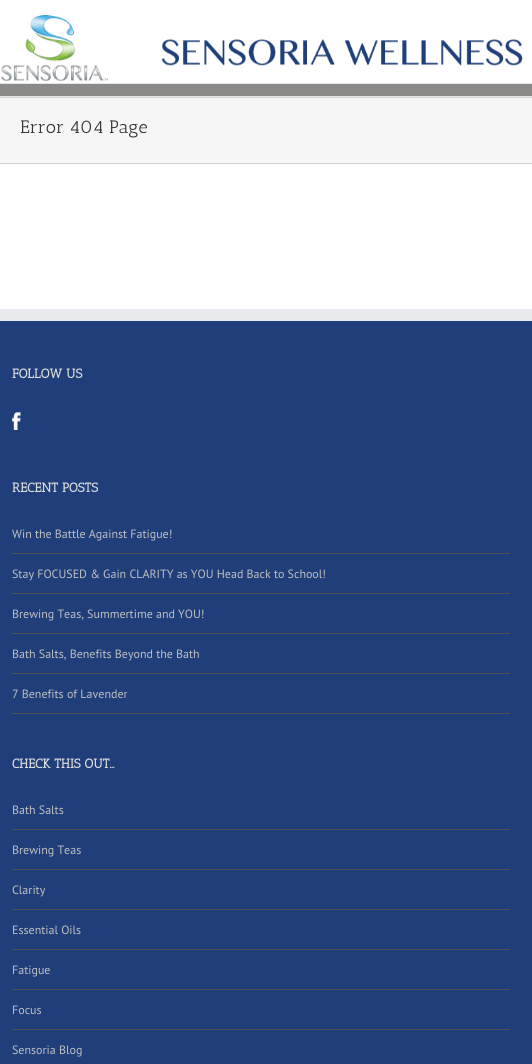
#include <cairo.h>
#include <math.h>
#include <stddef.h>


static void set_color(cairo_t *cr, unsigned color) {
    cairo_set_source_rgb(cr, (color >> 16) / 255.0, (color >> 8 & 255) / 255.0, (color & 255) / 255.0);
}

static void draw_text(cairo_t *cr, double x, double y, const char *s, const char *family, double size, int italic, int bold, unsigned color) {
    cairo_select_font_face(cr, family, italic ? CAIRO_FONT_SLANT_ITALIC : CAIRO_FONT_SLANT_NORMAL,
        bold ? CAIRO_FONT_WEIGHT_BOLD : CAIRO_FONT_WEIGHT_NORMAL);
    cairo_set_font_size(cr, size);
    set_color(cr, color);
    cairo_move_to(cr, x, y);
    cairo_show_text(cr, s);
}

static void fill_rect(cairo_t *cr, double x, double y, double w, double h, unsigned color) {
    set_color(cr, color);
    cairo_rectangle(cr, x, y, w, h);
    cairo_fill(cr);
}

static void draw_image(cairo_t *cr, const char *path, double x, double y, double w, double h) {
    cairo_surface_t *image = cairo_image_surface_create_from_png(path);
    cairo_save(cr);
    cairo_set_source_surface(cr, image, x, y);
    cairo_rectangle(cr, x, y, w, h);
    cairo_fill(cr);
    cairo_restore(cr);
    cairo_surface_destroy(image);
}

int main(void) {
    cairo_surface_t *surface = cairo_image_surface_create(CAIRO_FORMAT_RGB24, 532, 1064);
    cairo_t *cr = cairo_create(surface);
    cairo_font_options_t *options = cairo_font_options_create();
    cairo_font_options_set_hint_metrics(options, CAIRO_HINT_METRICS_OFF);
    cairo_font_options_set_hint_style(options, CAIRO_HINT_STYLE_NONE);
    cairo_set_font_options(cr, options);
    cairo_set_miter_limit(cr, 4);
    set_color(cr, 0xFFFFFF);
    cairo_paint(cr);
    fill_rect(cr, 0, 83, 532, 1, 0xE5E5E5);
    draw_image(cr, "assets/img1.png", 1, 15, 522, 66);
    fill_rect(cr, 0, 84, 532, 12, 0x8C8989);
    fill_rect(cr, 0, 96, 532, 1, 0xE5E5E5);
    fill_rect(cr, 0, 98, 532, 65, 0xF6F6F6);
    fill_rect(cr, 0, 97, 532, 1, 0xD2D3D4);
    fill_rect(cr, 0, 163, 532, 1, 0xD2D3D4);
    draw_text(cr, 20, 133, "Error 404 Page", "Antic Slab", 18, 0, 0, 0x333333);
    fill_rect(cr, 0, 321, 532, 743, 0x203F7A);
    fill_rect(cr, 0, 309, 532, 12, 0xE9EAEE);
    draw_text(cr, 12, 378, "FOLLOW US", "Antic Slab", 13, 0, 1, 0xDDDDDD);
    draw_image(cr, "assets/img2.png", 12, 412, 9, 18);
    draw_text(cr, 12, 492, "RECENT POSTS", "Antic Slab", 13, 0, 1, 0xDDDDDD);
    fill_rect(cr, 12, 553, 498, 1, 0x505152);
    draw_text(cr, 12, 538, "Win the Battle Against Fatigue!", "PT Sans", 12, 0, 0, 0xBFBFBF);
    fill_rect(cr, 12, 593, 498, 1, 0x505152);
    draw_text(cr, 12, 578, "Stay FOCUSED & Gain CLARITY as YOU Head Back to School!", "PT Sans", 12, 0, 0, 0xBFBFBF);
    fill_rect(cr, 12, 633, 498, 1, 0x505152);
    draw_text(cr, 12, 618, "Brewing Teas, Summertime and YOU!", "PT Sans", 12, 0, 0, 0xBFBFBF);
    fill_rect(cr, 12, 673, 498, 1, 0x505152);
    draw_text(cr, 12, 658, "Bath Salts, Benefits Beyond the Bath", "PT Sans", 12, 0, 0, 0xBFBFBF);
    fill_rect(cr, 12, 713, 498, 1, 0x505152);
    draw_text(cr, 12, 698, "7 Benefits of Lavender", "PT Sans", 12, 0, 0, 0xBFBFBF);
    draw_text(cr, 12, 768, "CHECK THIS OUT…", "Antic Slab", 13, 0, 1, 0xDDDDDD);
    fill_rect(cr, 12, 829, 498, 1, 0x505152);
    draw_text(cr, 12, 814, "Bath Salts", "PT Sans", 12, 0, 0, 0xBFBFBF);
    fill_rect(cr, 12, 869, 498, 1, 0x505152);
    draw_text(cr, 12, 854, "Brewing Teas", "PT Sans", 12, 0, 0, 0xBFBFBF);
    fill_rect(cr, 12, 909, 498, 1, 0x505152);
    draw_text(cr, 12, 894, "Clarity", "PT Sans", 12, 0, 0, 0xBFBFBF);
    fill_rect(cr, 12, 949, 498, 1, 0x505152);
    draw_text(cr, 12, 934, "Essential Oils", "PT Sans", 12, 0, 0, 0xBFBFBF);
    fill_rect(cr, 12, 989, 498, 1, 0x505152);
    draw_text(cr, 12, 974, "Fatigue", "PT Sans", 12, 0, 0, 0xBFBFBF);
    fill_rect(cr, 12, 1029, 498, 1, 0x505152);
    draw_text(cr, 12, 1014, "Focus", "PT Sans", 12, 0, 0, 0xBFBFBF);
    draw_text(cr, 12, 1054, "Sensoria Blog", "PT Sans", 12, 0, 0, 0xBFBFBF);
    cairo_surface_write_to_png(surface, "output.png");
    cairo_font_options_destroy(options);
    cairo_destroy(cr);
    cairo_surface_destroy(surface);
    return 0;
}
